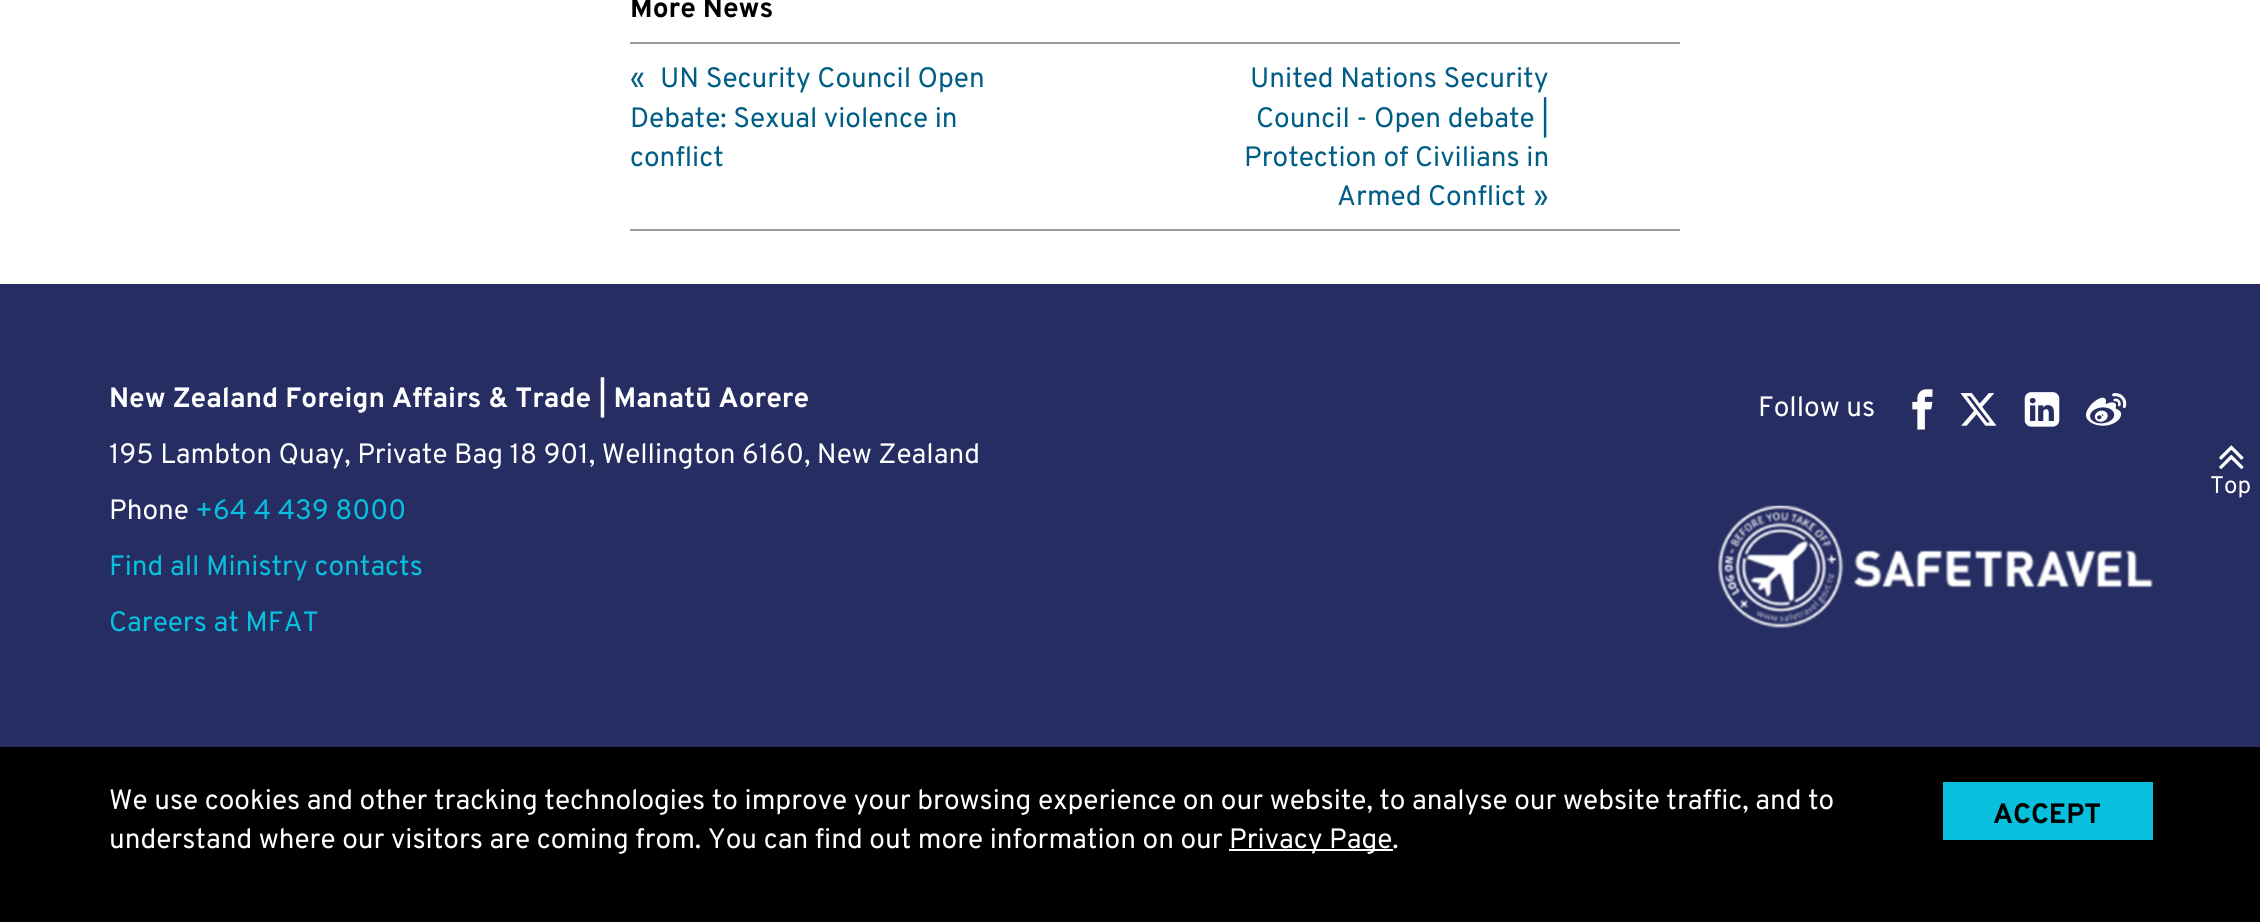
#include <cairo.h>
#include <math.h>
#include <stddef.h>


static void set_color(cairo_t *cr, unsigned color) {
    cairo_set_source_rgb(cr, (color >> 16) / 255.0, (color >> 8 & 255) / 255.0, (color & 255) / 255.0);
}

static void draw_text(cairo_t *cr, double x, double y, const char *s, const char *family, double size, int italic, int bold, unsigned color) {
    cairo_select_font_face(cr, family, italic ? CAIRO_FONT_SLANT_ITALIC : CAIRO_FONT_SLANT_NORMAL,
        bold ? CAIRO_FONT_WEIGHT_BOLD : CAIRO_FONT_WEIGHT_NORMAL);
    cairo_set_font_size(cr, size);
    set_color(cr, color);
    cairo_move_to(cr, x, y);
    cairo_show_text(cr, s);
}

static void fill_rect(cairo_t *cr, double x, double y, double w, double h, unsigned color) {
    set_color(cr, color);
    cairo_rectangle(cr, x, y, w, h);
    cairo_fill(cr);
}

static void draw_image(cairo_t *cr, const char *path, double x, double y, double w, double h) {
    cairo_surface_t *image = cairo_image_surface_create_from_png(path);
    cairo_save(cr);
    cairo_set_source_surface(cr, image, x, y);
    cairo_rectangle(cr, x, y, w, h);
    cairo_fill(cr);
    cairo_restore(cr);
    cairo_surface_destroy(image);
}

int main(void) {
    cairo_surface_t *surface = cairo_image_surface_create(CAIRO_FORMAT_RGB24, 2260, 922);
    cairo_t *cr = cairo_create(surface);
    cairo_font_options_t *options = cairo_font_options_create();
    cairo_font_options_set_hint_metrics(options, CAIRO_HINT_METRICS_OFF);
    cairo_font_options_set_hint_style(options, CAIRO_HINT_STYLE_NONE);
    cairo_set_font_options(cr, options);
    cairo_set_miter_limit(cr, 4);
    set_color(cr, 0xFFFFFF);
    cairo_paint(cr);
    draw_text(cr, 630, 17, "More News", "Overpass", 28, 0, 1, 0x000000);
    fill_rect(cr, 630, 42, 1050, 2, 0x999999);
    fill_rect(cr, 630, 229, 1050, 2, 0x999999);
    draw_text(cr, 630, 87, "«", "Overpass", 28, 0, 0, 0x005D85);
    draw_text(cr, 660, 87, "UN Security Council Open", "Overpass", 28, 0, 0, 0x005D85);
    draw_text(cr, 630, 127, "Debate: Sexual violence in", "Overpass", 28, 0, 0, 0x005D85);
    draw_text(cr, 630, 166, "conflict", "Overpass", 28, 0, 0, 0x005D85);
    draw_text(cr, 1250, 87, "United Nations Security", "Overpass", 28, 0, 0, 0x005D85);
    draw_text(cr, 1256, 127, "Council - Open debate |", "Overpass", 28, 0, 0, 0x005D85);
    draw_text(cr, 1244, 166, "Protection of Civilians in", "Overpass", 28, 0, 0, 0x005D85);
    draw_text(cr, 1337, 205, "Armed Conflict", "Overpass", 28, 0, 0, 0x005D85);
    draw_text(cr, 1534, 205, "»", "Overpass", 28, 0, 0, 0x005D85);
    fill_rect(cr, 0, 284, 2260, 463, 0x252D62);
    draw_image(cr, "assets/img1.png", 2219, 445, 25, 24);
    draw_text(cr, 2210, 493, "Top", "Overpass", 24, 0, 0, 0xFFFFFF);
    draw_text(cr, 109, 407, "New Zealand Foreign Affairs & Trade | Manatū Aorere", "Overpass", 28, 0, 1, 0xFFFFFF);
    draw_text(cr, 109, 463, "195 Lambton Quay, Private Bag 18 901, Wellington 6160, New Zealand", "Overpass", 28, 0, 0, 0xFFFFFF);
    draw_text(cr, 109, 519, "Phone", "Overpass", 28, 0, 0, 0xFFFFFF);
    draw_text(cr, 195, 519, "+64 4 439 8000", "Overpass", 28, 0, 0, 0x08C0DE);
    draw_text(cr, 109, 575, "Find all Ministry contacts", "Overpass", 28, 0, 0, 0x08C0DE);
    draw_text(cr, 109, 631, "Careers at MFAT", "Overpass", 28, 0, 0, 0x08C0DE);
    draw_text(cr, 1758, 416, "Follow us", "Overpass", 28, 0, 0, 0xFFFFFF);
    draw_image(cr, "assets/img2.png", 1912, 389, 21, 41);
    draw_image(cr, "assets/img3.png", 1960, 393, 37, 33);
    draw_image(cr, "assets/img4.png", 2024, 392, 36, 35);
    draw_image(cr, "assets/img5.png", 2086, 393, 41, 33);
    draw_image(cr, "assets/img6.png", 1718, 505, 435, 124);
    fill_rect(cr, 0, 747, 2260, 175, 0x000000);
    draw_text(cr, 109, 809, "We use cookies and other tracking technologies to improve your browsing experience on our website, to analyse our website traffic, and to", "Overpass", 28, 0, 0, 0xFFFFFF);
    draw_text(cr, 109, 848, "understand where our visitors are coming from. You can find out more information on our", "Overpass", 28, 0, 0, 0xFFFFFF);
    fill_rect(cr, 1229, 849, 164, 2, 0xFFFFFF);
    draw_text(cr, 1229, 848, "Privacy Page.", "Overpass", 28, 0, 0, 0xFFFFFF);
    fill_rect(cr, 1943, 782, 210, 58, 0x08C0DE);
    draw_text(cr, 1993, 823, "ACCEPT", "Overpass", 28, 0, 1, 0x000000);
    cairo_surface_write_to_png(surface, "output.png");
    cairo_font_options_destroy(options);
    cairo_destroy(cr);
    cairo_surface_destroy(surface);
    return 0;
}
